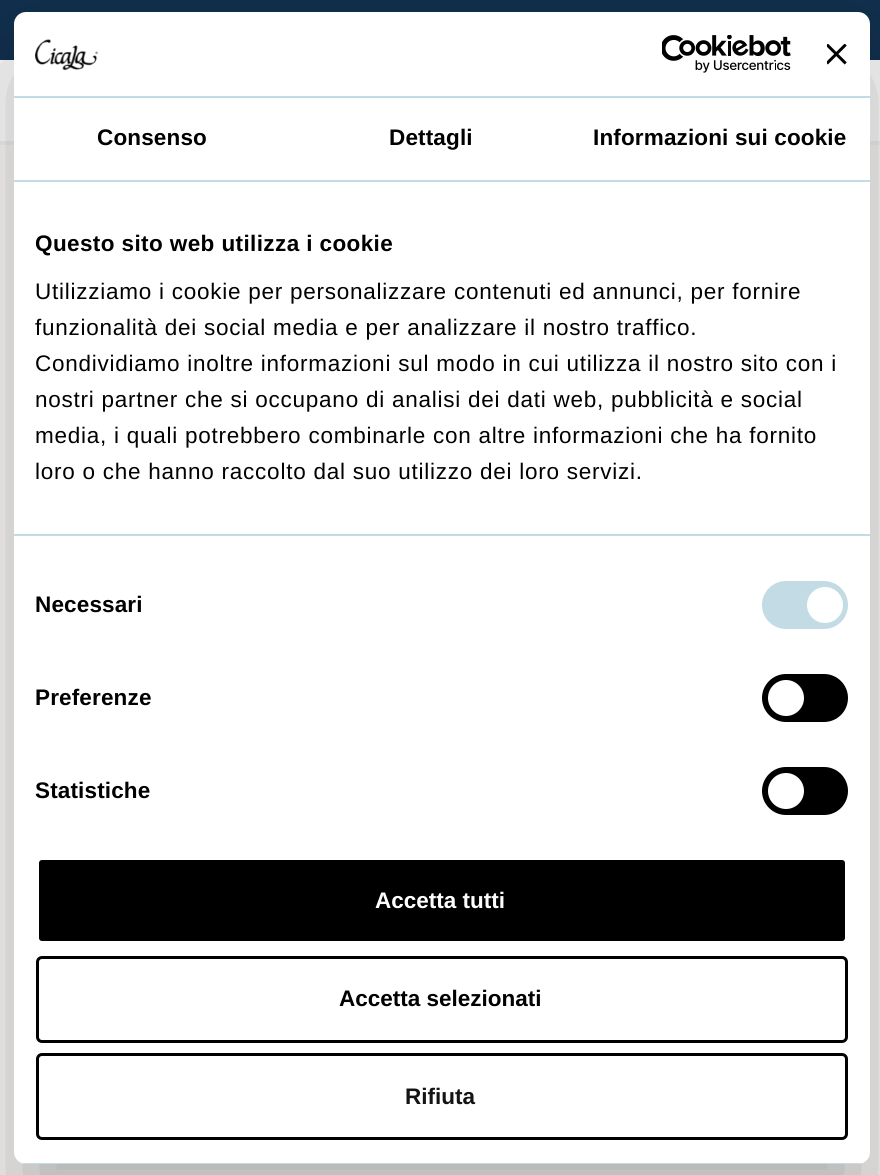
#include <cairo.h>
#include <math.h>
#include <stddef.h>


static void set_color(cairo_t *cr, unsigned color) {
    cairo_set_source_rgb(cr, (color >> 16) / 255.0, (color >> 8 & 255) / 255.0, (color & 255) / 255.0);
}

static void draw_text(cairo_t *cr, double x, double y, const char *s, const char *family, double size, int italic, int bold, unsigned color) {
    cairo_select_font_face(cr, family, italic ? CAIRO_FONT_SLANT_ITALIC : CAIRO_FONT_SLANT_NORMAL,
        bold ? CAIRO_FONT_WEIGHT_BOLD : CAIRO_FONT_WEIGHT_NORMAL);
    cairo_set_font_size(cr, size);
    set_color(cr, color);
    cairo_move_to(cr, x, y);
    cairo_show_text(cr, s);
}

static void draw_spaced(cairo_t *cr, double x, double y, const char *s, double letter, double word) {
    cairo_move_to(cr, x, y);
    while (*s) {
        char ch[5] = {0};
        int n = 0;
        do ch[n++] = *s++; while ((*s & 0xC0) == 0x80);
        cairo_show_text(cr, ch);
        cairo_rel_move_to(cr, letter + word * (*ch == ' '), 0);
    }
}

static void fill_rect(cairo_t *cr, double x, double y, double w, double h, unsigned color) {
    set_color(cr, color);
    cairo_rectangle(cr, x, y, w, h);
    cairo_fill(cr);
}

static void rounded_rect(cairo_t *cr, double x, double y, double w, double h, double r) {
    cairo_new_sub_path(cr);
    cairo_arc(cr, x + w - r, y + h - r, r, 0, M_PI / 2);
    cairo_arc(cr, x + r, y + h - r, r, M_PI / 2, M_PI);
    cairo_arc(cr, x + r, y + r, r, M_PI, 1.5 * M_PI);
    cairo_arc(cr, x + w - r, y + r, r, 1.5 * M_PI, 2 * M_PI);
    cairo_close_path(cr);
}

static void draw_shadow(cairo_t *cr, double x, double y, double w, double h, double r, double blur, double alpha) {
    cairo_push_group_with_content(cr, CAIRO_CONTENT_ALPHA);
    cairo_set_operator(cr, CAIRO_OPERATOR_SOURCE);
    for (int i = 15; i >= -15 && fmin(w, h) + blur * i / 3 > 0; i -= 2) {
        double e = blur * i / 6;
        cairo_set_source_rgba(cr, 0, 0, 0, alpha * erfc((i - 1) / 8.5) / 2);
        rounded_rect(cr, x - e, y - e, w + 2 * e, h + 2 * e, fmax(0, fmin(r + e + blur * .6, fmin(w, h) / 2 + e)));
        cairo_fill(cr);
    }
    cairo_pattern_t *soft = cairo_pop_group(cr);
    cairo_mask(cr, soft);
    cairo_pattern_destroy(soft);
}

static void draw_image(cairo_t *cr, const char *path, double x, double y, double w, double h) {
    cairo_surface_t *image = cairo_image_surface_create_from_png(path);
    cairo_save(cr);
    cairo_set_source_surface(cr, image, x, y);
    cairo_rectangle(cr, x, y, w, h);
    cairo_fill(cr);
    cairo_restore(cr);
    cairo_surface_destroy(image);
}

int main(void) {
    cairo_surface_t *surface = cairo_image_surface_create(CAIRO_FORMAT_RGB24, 880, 1175);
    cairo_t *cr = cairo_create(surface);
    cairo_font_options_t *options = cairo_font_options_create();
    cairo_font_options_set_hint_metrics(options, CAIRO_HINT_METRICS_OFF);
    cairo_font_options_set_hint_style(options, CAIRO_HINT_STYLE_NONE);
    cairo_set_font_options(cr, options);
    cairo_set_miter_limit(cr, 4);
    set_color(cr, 0xFFFFFF);
    cairo_paint(cr);
    fill_rect(cr, 0, 0, 880, 60, 0x11304E);
    fill_rect(cr, 0, 141, 880, 4, 0xF2F2F2);
    fill_rect(cr, 0, 145, 880, 1030, 0xFAF9F8);
    set_color(cr, 0x000000);
    draw_shadow(cr, 14, 60, 856, 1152, 12, 51, 0.3);
    set_color(cr, 0xFFFFFF);
    rounded_rect(cr, 14, 12, 856, 1152, 12);
    cairo_fill(cr);
    fill_rect(cr, 14, 96, 856, 2, 0xC3DBE5);
    draw_image(cr, "assets/img1.png", 35, 39, 63, 32);
    draw_image(cr, "assets/img2.png", 662, 35, 129, 38);
    draw_image(cr, "assets/img3.png", 827, 44, 20, 21);
    fill_rect(cr, 14, 180, 856, 2, 0xC3DBE5);
    cairo_select_font_face(cr, "Liberation Sans", CAIRO_FONT_SLANT_NORMAL, CAIRO_FONT_WEIGHT_BOLD);
    cairo_set_font_size(cr, 22.5);
    set_color(cr, 0x000000);
    draw_spaced(cr, 97, 145, "Consenso", 0.15, 0);
    draw_spaced(cr, 389, 145, "Dettagli", 0.15, 0);
    draw_spaced(cr, 593, 145, "Informazioni sui cookie", 0.15, 0);
    fill_rect(cr, 14, 534, 856, 2, 0xC3DBE5);
    set_color(cr, 0x000000);
    draw_spaced(cr, 35, 251, "Questo sito web utilizza i cookie", 0.4, 0);
    cairo_select_font_face(cr, "Liberation Sans", CAIRO_FONT_SLANT_NORMAL, CAIRO_FONT_WEIGHT_NORMAL);
    draw_spaced(cr, 35, 299, "Utilizziamo i cookie per personalizzare contenuti ed annunci, per fornire", 0.75, 0);
    draw_spaced(cr, 35, 335, "funzionalità dei social media e per analizzare il nostro traffico.", 0.75, 0);
    draw_spaced(cr, 35, 371, "Condividiamo inoltre informazioni sul modo in cui utilizza il nostro sito con i", 0.75, 0);
    draw_spaced(cr, 35, 407, "nostri partner che si occupano di analisi dei dati web, pubblicità e social", 0.75, 0);
    draw_spaced(cr, 35, 443, "media, i quali potrebbero combinarle con altre informazioni che ha fornito", 0.75, 0);
    draw_spaced(cr, 35, 479, "loro o che hanno raccolto dal suo utilizzo dei loro servizi.", 0.75, 0);
    cairo_select_font_face(cr, "Liberation Sans", CAIRO_FONT_SLANT_NORMAL, CAIRO_FONT_WEIGHT_BOLD);
    draw_spaced(cr, 35, 612, "Necessari", 0.15, 0);
    set_color(cr, 0xC3DBE5);
    rounded_rect(cr, 762, 581, 86, 48, 24);
    cairo_fill(cr);
    set_color(cr, 0xFFFFFF);
    cairo_arc(cr, 825, 605, 18, 0, 2 * M_PI);
    cairo_fill(cr);
    set_color(cr, 0x000000);
    draw_spaced(cr, 35, 705, "Preferenze", 0.15, 0);
    rounded_rect(cr, 762, 674, 86, 48, 24);
    cairo_fill(cr);
    set_color(cr, 0xFFFFFF);
    cairo_arc(cr, 786, 698, 18, 0, 2 * M_PI);
    cairo_fill(cr);
    set_color(cr, 0x000000);
    draw_spaced(cr, 35, 798, "Statistiche", 0.15, 0);
    rounded_rect(cr, 762, 767, 86, 48, 24);
    cairo_fill(cr);
    set_color(cr, 0xFFFFFF);
    cairo_arc(cr, 786, 791, 18, 0, 2 * M_PI);
    cairo_fill(cr);
    cairo_save(cr);
    rounded_rect(cr, 14, 12, 856, 1152, 12);
    cairo_clip(cr);
    fill_rect(cr, 14, 1163, 856, 1, 0xC3DBE5);
    cairo_restore(cr);
    set_color(cr, 0x000000);
    rounded_rect(cr, 37.5, 858.5, 809, 84, 4.5);
    cairo_fill_preserve(cr);
    set_color(cr, 0xFFFFFF);
    cairo_set_line_width(cr, 3);
    cairo_stroke(cr);
    draw_text(cr, 375, 908, "Accetta tutti", "Liberation Sans", 22.5, 0, 1, 0xFFFFFF);
    rounded_rect(cr, 37.5, 957.5, 809, 84, 4.5);
    set_color(cr, 0x000000);
    cairo_stroke(cr);
    draw_text(cr, 339, 1006, "Accetta selezionati", "Liberation Sans", 22.5, 0, 1, 0x000000);
    rounded_rect(cr, 37.5, 1054.5, 809, 84, 4.5);
    cairo_stroke(cr);
    draw_text(cr, 405, 1104, "Rifiuta", "Liberation Sans", 22.5, 0, 1, 0x141414);
    cairo_surface_write_to_png(surface, "output.png");
    cairo_font_options_destroy(options);
    cairo_destroy(cr);
    cairo_surface_destroy(surface);
    return 0;
}
